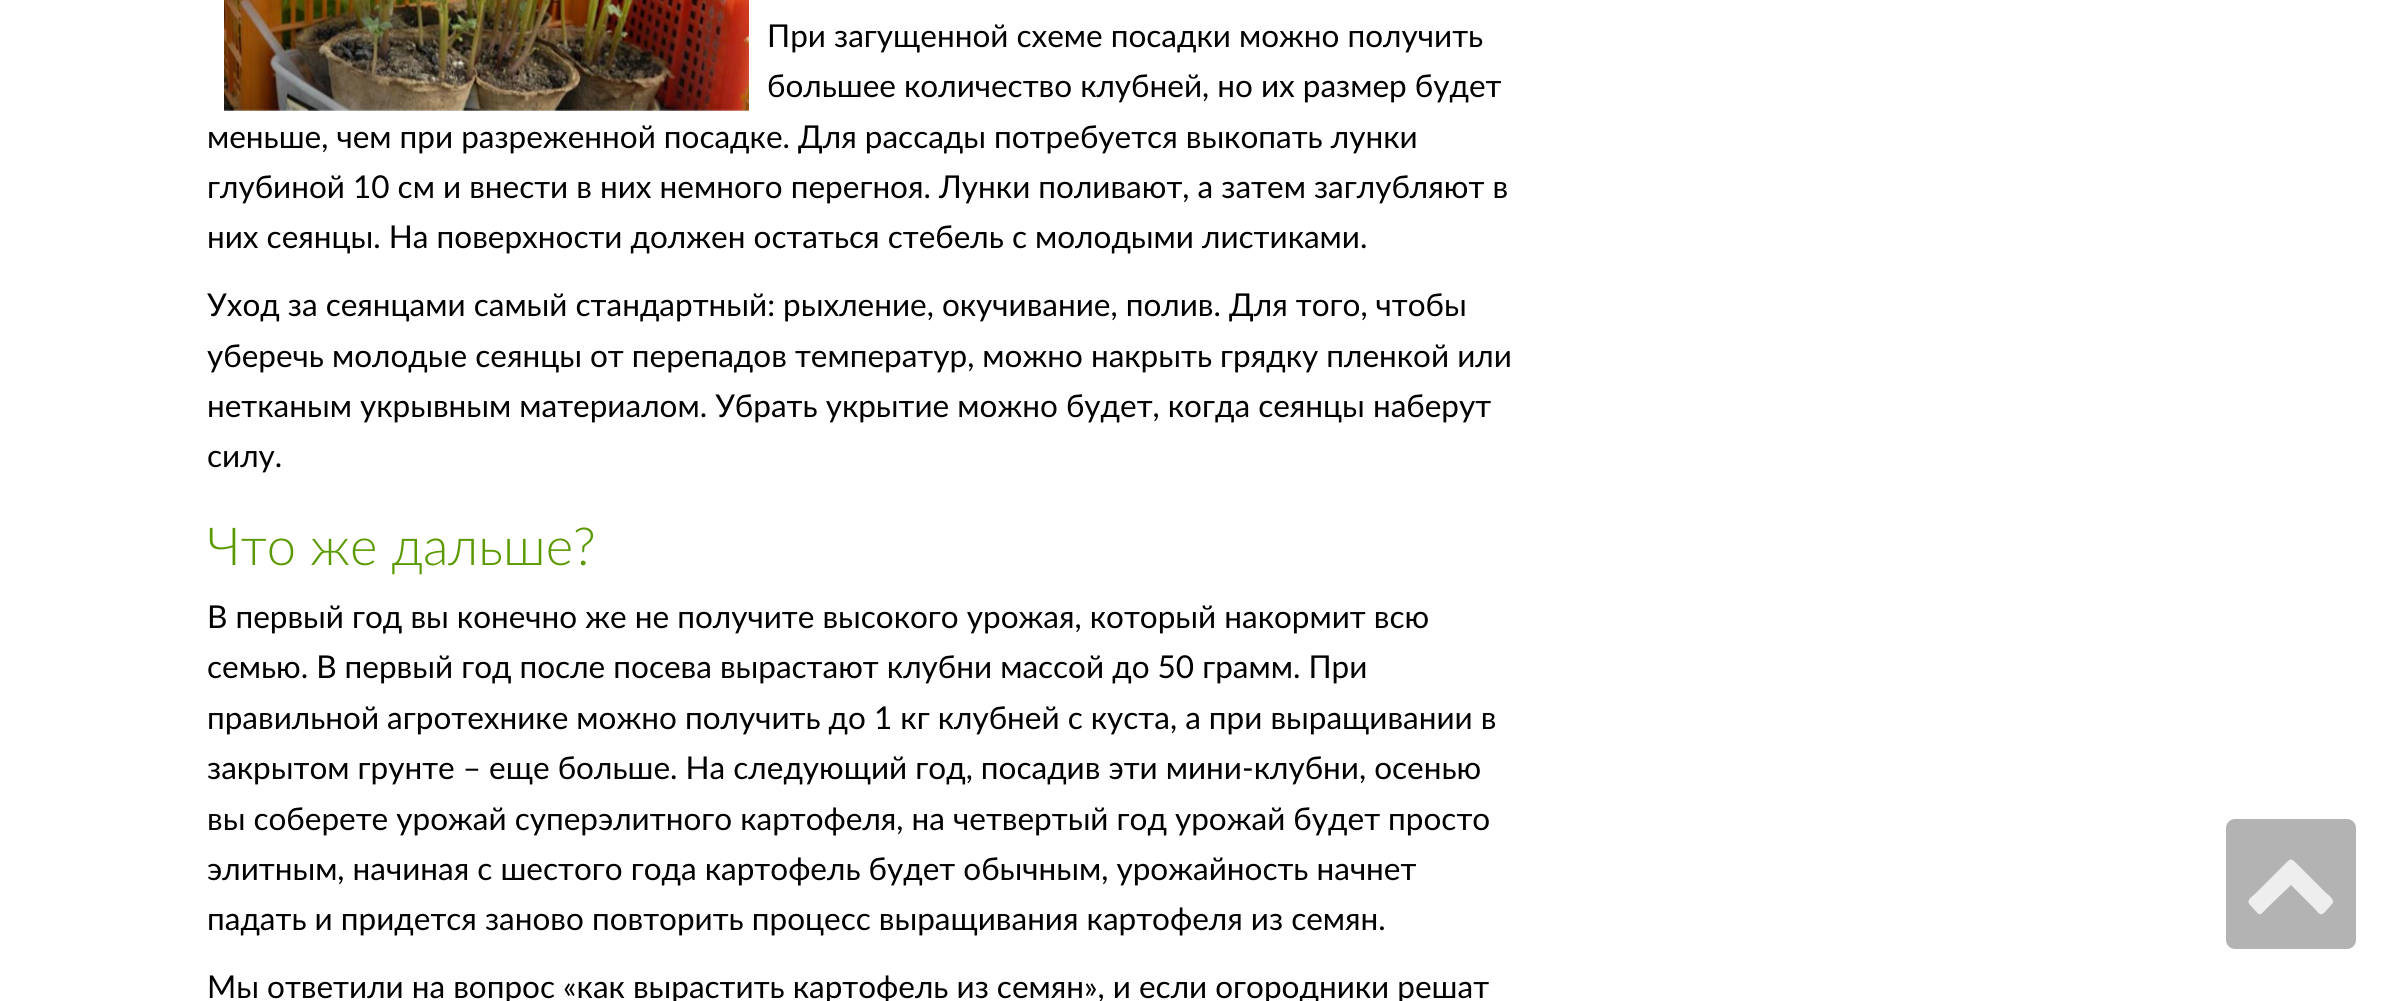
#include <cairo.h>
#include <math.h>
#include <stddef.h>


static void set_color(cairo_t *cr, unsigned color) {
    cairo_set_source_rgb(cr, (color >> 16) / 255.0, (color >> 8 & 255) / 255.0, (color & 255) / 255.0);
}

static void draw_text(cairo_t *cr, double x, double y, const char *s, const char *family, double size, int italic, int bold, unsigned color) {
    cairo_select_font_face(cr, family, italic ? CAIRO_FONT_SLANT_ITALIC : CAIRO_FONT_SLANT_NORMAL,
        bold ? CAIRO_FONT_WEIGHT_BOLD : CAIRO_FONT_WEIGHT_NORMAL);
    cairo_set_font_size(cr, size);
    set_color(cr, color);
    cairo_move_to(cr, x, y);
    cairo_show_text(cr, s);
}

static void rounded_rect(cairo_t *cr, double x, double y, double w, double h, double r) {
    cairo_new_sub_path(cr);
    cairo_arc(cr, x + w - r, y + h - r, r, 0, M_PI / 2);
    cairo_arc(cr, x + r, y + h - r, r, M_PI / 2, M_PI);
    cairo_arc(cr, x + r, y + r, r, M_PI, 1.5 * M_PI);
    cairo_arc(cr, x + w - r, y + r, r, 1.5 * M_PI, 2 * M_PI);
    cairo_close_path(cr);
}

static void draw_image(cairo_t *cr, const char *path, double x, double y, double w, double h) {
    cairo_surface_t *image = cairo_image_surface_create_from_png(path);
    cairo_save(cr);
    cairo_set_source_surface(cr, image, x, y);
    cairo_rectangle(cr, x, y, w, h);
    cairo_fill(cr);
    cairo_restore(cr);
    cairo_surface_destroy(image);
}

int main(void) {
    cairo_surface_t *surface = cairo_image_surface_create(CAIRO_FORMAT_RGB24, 2407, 1001);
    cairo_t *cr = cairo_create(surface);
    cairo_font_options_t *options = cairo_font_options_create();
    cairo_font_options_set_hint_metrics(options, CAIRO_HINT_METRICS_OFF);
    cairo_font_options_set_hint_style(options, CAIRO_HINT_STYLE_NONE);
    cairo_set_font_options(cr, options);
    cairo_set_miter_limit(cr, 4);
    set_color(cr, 0xFFFFFF);
    cairo_paint(cr);
    draw_image(cr, "assets/img1.png", 224, 0, 525, 111);
    draw_text(cr, 767, 47, "При загущенной схеме посадки можно получить", "Lato", 31.5, 0, 0, 0x000000);
    draw_text(cr, 767, 97, "большее количество клубней, но их размер будет", "Lato", 31.5, 0, 0, 0x000000);
    draw_text(cr, 207, 148, "меньше, чем при разреженной посадке. Для рассады потребуется выкопать лунки", "Lato", 31.5, 0, 0, 0x000000);
    draw_text(cr, 207, 198, "глубиной 10 см и внести в них немного перегноя. Лунки поливают, а затем заглубляют в", "Lato", 31.5, 0, 0, 0x000000);
    draw_text(cr, 207, 248, "них сеянцы. На поверхности должен остаться стебель с молодыми листиками.", "Lato", 31.5, 0, 0, 0x000000);
    draw_text(cr, 207, 316, "Уход за сеянцами самый стандартный: рыхление, окучивание, полив. Для того, чтобы", "Lato", 31.5, 0, 0, 0x000000);
    draw_text(cr, 207, 367, "уберечь молодые сеянцы от перепадов температур, можно накрыть грядку пленкой или", "Lato", 31.5, 0, 0, 0x000000);
    draw_text(cr, 207, 417, "нетканым укрывным материалом. Убрать укрытие можно будет, когда сеянцы наберут", "Lato", 31.5, 0, 0, 0x000000);
    draw_text(cr, 207, 467, "силу.", "Lato", 31.5, 0, 0, 0x000000);
    draw_text(cr, 207, 565, "Что же дальше?", "Lato Light", 52.5, 0, 0, 0x5A9900);
    draw_text(cr, 207, 628, "В первый год вы конечно же не получите высокого урожая, который накормит всю", "Lato", 31.5, 0, 0, 0x000000);
    draw_text(cr, 207, 678, "семью. В первый год после посева вырастают клубни массой до 50 грамм. При", "Lato", 31.5, 0, 0, 0x000000);
    draw_text(cr, 207, 729, "правильной агротехнике можно получить до 1 кг клубней с куста, а при выращивании в", "Lato", 31.5, 0, 0, 0x000000);
    draw_text(cr, 207, 779, "закрытом грунте – еще больше. На следующий год, посадив эти мини-клубни, осенью", "Lato", 31.5, 0, 0, 0x000000);
    draw_text(cr, 207, 830, "вы соберете урожай суперэлитного картофеля, на четвертый год урожай будет просто", "Lato", 31.5, 0, 0, 0x000000);
    draw_text(cr, 207, 880, "элитным, начиная с шестого года картофель будет обычным, урожайность начнет", "Lato", 31.5, 0, 0, 0x000000);
    draw_text(cr, 207, 930, "падать и придется заново повторить процесс выращивания картофеля из семян.", "Lato", 31.5, 0, 0, 0x000000);
    draw_text(cr, 207, 998, "Мы ответили на вопрос «как вырастить картофель из семян», и если огородники решат", "Lato", 31.5, 0, 0, 0x000000);
    set_color(cr, 0xB3B3B3);
    rounded_rect(cr, 2226, 819, 130, 130, 9);
    cairo_fill(cr);
    set_color(cr, 0xEEEEEE);
    cairo_new_path(cr);
    cairo_move_to(cr, 2332, 904);
    cairo_line_to(cr, 2325, 912);
    cairo_curve_to(cr, 2320, 917, 2319, 913, 2314, 908);
    cairo_line_to(cr, 2291, 885);
    cairo_line_to(cr, 2267, 908);
    cairo_curve_to(cr, 2258, 918, 2260, 915, 2251, 906);
    cairo_curve_to(cr, 2245, 900, 2251, 898, 2256, 893);
    cairo_line_to(cr, 2282, 867);
    cairo_curve_to(cr, 2292, 857, 2290, 857, 2300, 867);
    cairo_line_to(cr, 2326, 893);
    cairo_curve_to(cr, 2327, 894, 2336, 900, 2332, 904);
    cairo_close_path(cr);
    cairo_fill(cr);
    cairo_surface_write_to_png(surface, "output.png");
    cairo_font_options_destroy(options);
    cairo_destroy(cr);
    cairo_surface_destroy(surface);
    return 0;
}
